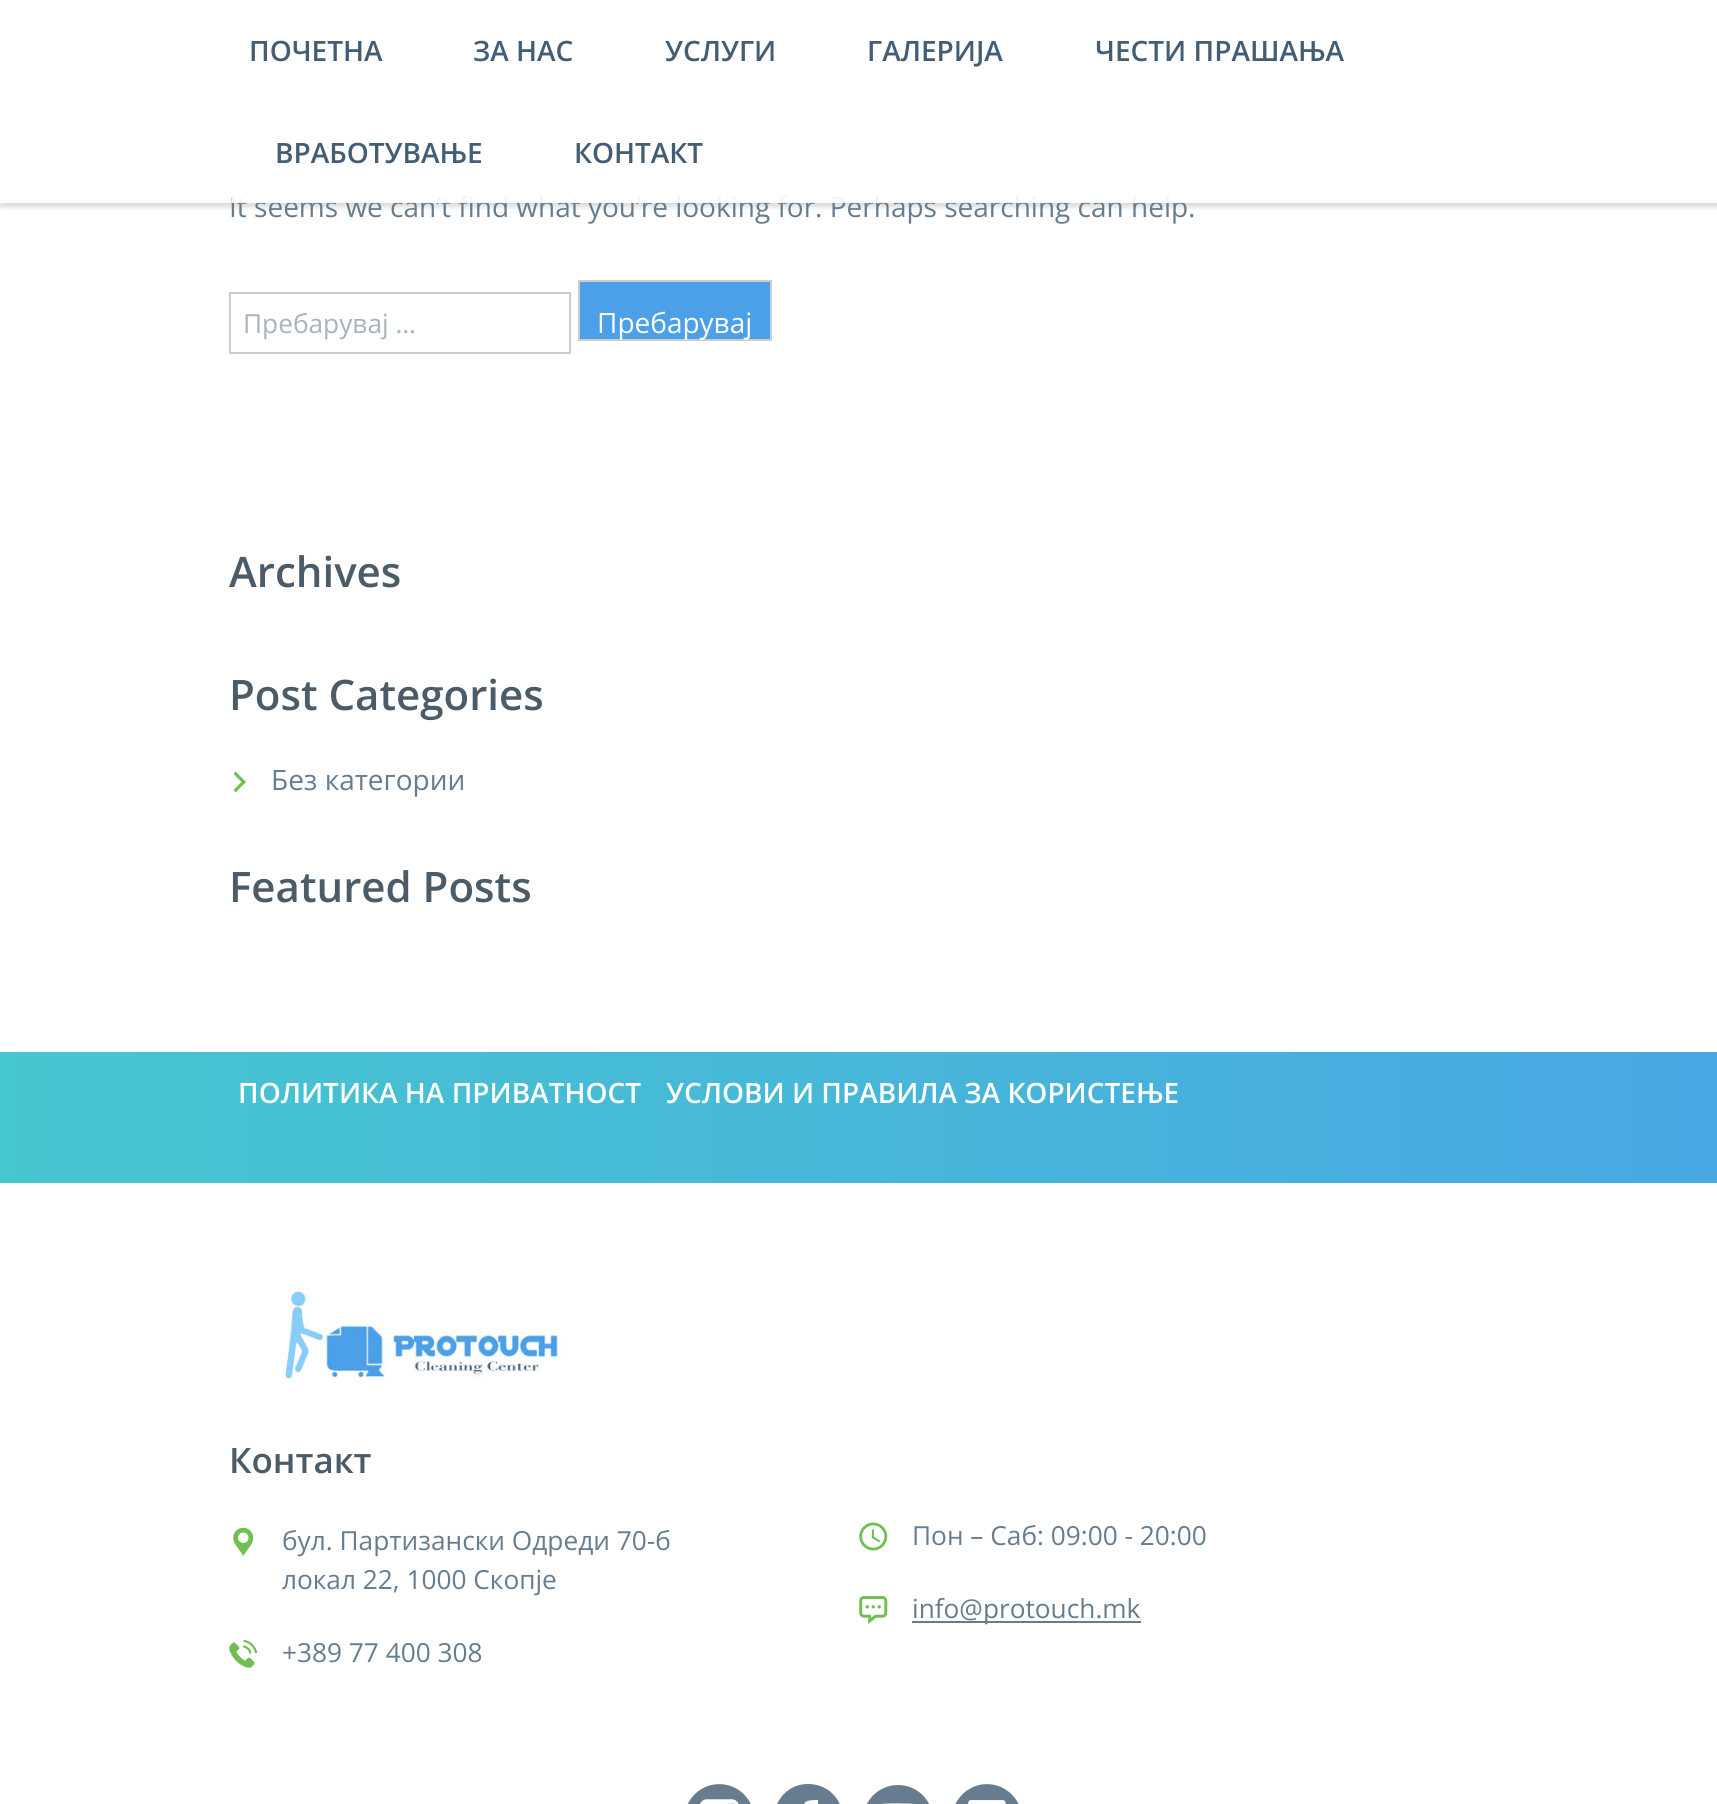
#include <cairo.h>
#include <math.h>
#include <stddef.h>


static void set_color(cairo_t *cr, unsigned color) {
    cairo_set_source_rgb(cr, (color >> 16) / 255.0, (color >> 8 & 255) / 255.0, (color & 255) / 255.0);
}

static void draw_text(cairo_t *cr, double x, double y, const char *s, const char *family, double size, int italic, int bold, unsigned color) {
    cairo_select_font_face(cr, family, italic ? CAIRO_FONT_SLANT_ITALIC : CAIRO_FONT_SLANT_NORMAL,
        bold ? CAIRO_FONT_WEIGHT_BOLD : CAIRO_FONT_WEIGHT_NORMAL);
    cairo_set_font_size(cr, size);
    set_color(cr, color);
    cairo_move_to(cr, x, y);
    cairo_show_text(cr, s);
}

static void fill_rect(cairo_t *cr, double x, double y, double w, double h, unsigned color) {
    set_color(cr, color);
    cairo_rectangle(cr, x, y, w, h);
    cairo_fill(cr);
}

static void rounded_rect(cairo_t *cr, double x, double y, double w, double h, double r) {
    cairo_new_sub_path(cr);
    cairo_arc(cr, x + w - r, y + h - r, r, 0, M_PI / 2);
    cairo_arc(cr, x + r, y + h - r, r, M_PI / 2, M_PI);
    cairo_arc(cr, x + r, y + r, r, M_PI, 1.5 * M_PI);
    cairo_arc(cr, x + w - r, y + r, r, 1.5 * M_PI, 2 * M_PI);
    cairo_close_path(cr);
}

static void draw_shadow(cairo_t *cr, double x, double y, double w, double h, double r, double blur, double alpha) {
    cairo_push_group_with_content(cr, CAIRO_CONTENT_ALPHA);
    cairo_set_operator(cr, CAIRO_OPERATOR_SOURCE);
    for (int i = 15; i >= -15 && fmin(w, h) + blur * i / 3 > 0; i -= 2) {
        double e = blur * i / 6;
        cairo_set_source_rgba(cr, 0, 0, 0, alpha * erfc((i - 1) / 8.5) / 2);
        rounded_rect(cr, x - e, y - e, w + 2 * e, h + 2 * e, fmax(0, fmin(r + e + blur * .6, fmin(w, h) / 2 + e)));
        cairo_fill(cr);
    }
    cairo_pattern_t *soft = cairo_pop_group(cr);
    cairo_mask(cr, soft);
    cairo_pattern_destroy(soft);
}

static void draw_image(cairo_t *cr, const char *path, double x, double y, double w, double h) {
    cairo_surface_t *image = cairo_image_surface_create_from_png(path);
    cairo_save(cr);
    cairo_set_source_surface(cr, image, x, y);
    cairo_rectangle(cr, x, y, w, h);
    cairo_fill(cr);
    cairo_restore(cr);
    cairo_surface_destroy(image);
}

int main(void) {
    cairo_surface_t *surface = cairo_image_surface_create(CAIRO_FORMAT_RGB24, 1717, 1804);
    cairo_t *cr = cairo_create(surface);
    cairo_font_options_t *options = cairo_font_options_create();
    cairo_font_options_set_hint_metrics(options, CAIRO_HINT_METRICS_OFF);
    cairo_font_options_set_hint_style(options, CAIRO_HINT_STYLE_NONE);
    cairo_set_font_options(cr, options);
    cairo_set_miter_limit(cr, 4);
    cairo_pattern_t *gradient;
    set_color(cr, 0xFFFFFF);
    cairo_paint(cr);
    cairo_save(cr);
    cairo_rectangle(cr, 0, 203, 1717, 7);
    cairo_clip(cr);
    set_color(cr, 0x000000);
    draw_shadow(cr, 0, 4, 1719, 203, 0, 2.5, 0.15);
    cairo_restore(cr);
    draw_text(cr, 229, 217, "It seems we can’t find what you’re looking for. Perhaps searching can help.", "Open Sans", 28, 0, 0, 0x677D8F);
    cairo_set_source_rgba(cr, 1, 1, 1, 0.9);
    cairo_rectangle(cr, 232, 195, 953, 8);
    cairo_fill(cr);
    draw_text(cr, 249, 61, "ПОЧЕТНА", "Open Sans SemiBold", 28, 0, 0, 0x425D74);
    draw_text(cr, 473, 61, "ЗА НАС", "Open Sans SemiBold", 28, 0, 0, 0x425D74);
    draw_text(cr, 665, 61, "УСЛУГИ", "Open Sans SemiBold", 28, 0, 0, 0x425D74);
    draw_text(cr, 867, 61, "ГАЛЕРИЈА", "Open Sans SemiBold", 28, 0, 0, 0x425D74);
    draw_text(cr, 1095, 61, "ЧЕСТИ ПРАШАЊА", "Open Sans SemiBold", 28, 0, 0, 0x425D74);
    draw_text(cr, 275, 163, "ВРАБОТУВАЊЕ", "Open Sans SemiBold", 28, 0, 0, 0x425D74);
    draw_text(cr, 574, 163, "КОНТАКТ", "Open Sans SemiBold", 28, 0, 0, 0x425D74);
    cairo_rectangle(cr, 230, 293, 340, 60);
    set_color(cr, 0xCCCCCC);
    cairo_stroke(cr);
    draw_text(cr, 243, 333, "Пребарувај …", "Open Sans", 26.25, 0, 0, 0xA7B3BD);
    set_color(cr, 0x4BA0E8);
    cairo_rectangle(cr, 579, 281, 192, 59);
    cairo_fill_preserve(cr);
    set_color(cr, 0xCCCCCC);
    cairo_stroke(cr);
    draw_text(cr, 597, 333, "Пребарувај", "Open Sans", 28, 0, 0, 0xFFFFFF);
    draw_text(cr, 229, 587, "Archives", "Open Sans SemiBold", 42, 0, 0, 0x4B5B68);
    draw_text(cr, 229, 710, "Post Categories", "Open Sans SemiBold", 42, 0, 0, 0x4B5B68);
    set_color(cr, 0x6FBF52);
    cairo_new_path(cr);
    cairo_move_to(cr, 235.5, 771.5);
    cairo_line_to(cr, 233.5, 774);
    cairo_line_to(cr, 241.5, 782);
    cairo_line_to(cr, 233.5, 790);
    cairo_line_to(cr, 235.5, 792.5);
    cairo_line_to(cr, 246, 782);
    cairo_close_path(cr);
    cairo_fill(cr);
    draw_text(cr, 271, 790, "Без категории", "Open Sans", 28, 0, 0, 0x677D8F);
    draw_text(cr, 229, 902, "Featured Posts", "Open Sans SemiBold", 42, 0, 0, 0x4B5B68);
    gradient = cairo_pattern_create_linear(0, 1117, 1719, 1117);
    cairo_pattern_add_color_stop_rgba(gradient, 0, 0.275, 0.776, 0.812, 1);
    cairo_pattern_add_color_stop_rgba(gradient, 1, 0.278, 0.659, 0.89, 1);
    cairo_set_source(cr, gradient);
    cairo_pattern_destroy(gradient);
    cairo_rectangle(cr, 0, 1052, 1717, 131);
    cairo_fill(cr);
    draw_text(cr, 238, 1103, "ПОЛИТИКА НА ПРИВАТНОСТ", "Open Sans SemiBold", 28, 0, 0, 0xFFFFFF);
    draw_text(cr, 666, 1103, "УСЛОВИ И ПРАВИЛА ЗА КОРИСТЕЊЕ", "Open Sans SemiBold", 28, 0, 0, 0xFFFFFF);
    draw_image(cr, "assets/img1.png", 282, 1288, 280, 92);
    draw_text(cr, 229, 1473, "Контакт", "Open Sans SemiBold", 35, 0, 0, 0x4B5B68);
    draw_image(cr, "assets/img2.png", 233, 1527, 21, 29);
    draw_text(cr, 282, 1550, "бул. Партизански Одреди 70-б", "Open Sans", 26.25, 0, 0, 0x677D8F);
    draw_text(cr, 282, 1589, "локал 22, 1000 Скопје", "Open Sans", 26.25, 0, 0, 0x677D8F);
    draw_image(cr, "assets/img3.png", 229, 1639, 29, 29);
    draw_text(cr, 282, 1662, "+389 77 400 308", "Open Sans", 26.25, 0, 0, 0x677D8F);
    draw_image(cr, "assets/img4.png", 859, 1522, 29, 29);
    draw_text(cr, 912, 1545, "Пон – Саб: 09:00 - 20:00", "Open Sans", 26.25, 0, 0, 0x677D8F);
    draw_image(cr, "assets/img5.png", 859, 1596, 29, 28);
    fill_rect(cr, 912, 1621, 229, 2, 0x677D8F);
    draw_text(cr, 912, 1618, "info@protouch.mk", "Open Sans", 26.25, 0, 0, 0x677D8F);
    draw_image(cr, "assets/img6.png", 687, 1784, 64, 20);
    cairo_new_path(cr);
    cairo_move_to(cr, 808, 1784);
    cairo_curve_to(cr, 775, 1784, 761, 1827, 788, 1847);
    cairo_curve_to(cr, 794, 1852, 801, 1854, 808, 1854);
    cairo_curve_to(cr, 816, 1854, 823, 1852, 829, 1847);
    cairo_curve_to(cr, 856, 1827, 842, 1784, 808, 1784);
    cairo_close_path(cr);
    cairo_move_to(cr, 817, 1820);
    cairo_line_to(cr, 812, 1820);
    cairo_line_to(cr, 812, 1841);
    cairo_line_to(cr, 803, 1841);
    cairo_line_to(cr, 803, 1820);
    cairo_line_to(cr, 799, 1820);
    cairo_line_to(cr, 799, 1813);
    cairo_line_to(cr, 803, 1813);
    cairo_curve_to(cr, 803, 1801, 805, 1800, 818, 1800);
    cairo_line_to(cr, 818, 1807);
    cairo_curve_to(cr, 812, 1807, 812, 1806, 812, 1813);
    cairo_line_to(cr, 818, 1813);
    cairo_close_path(cr);
    cairo_fill(cr);
    rounded_rect(cr, 863, 1785, 70, 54, 35);
    cairo_fill(cr);
    draw_image(cr, "assets/img7.png", 880, 1803, 34, 1);
    draw_image(cr, "assets/img8.png", 955, 1784, 64, 20);
    cairo_surface_write_to_png(surface, "output.png");
    cairo_font_options_destroy(options);
    cairo_destroy(cr);
    cairo_surface_destroy(surface);
    return 0;
}
